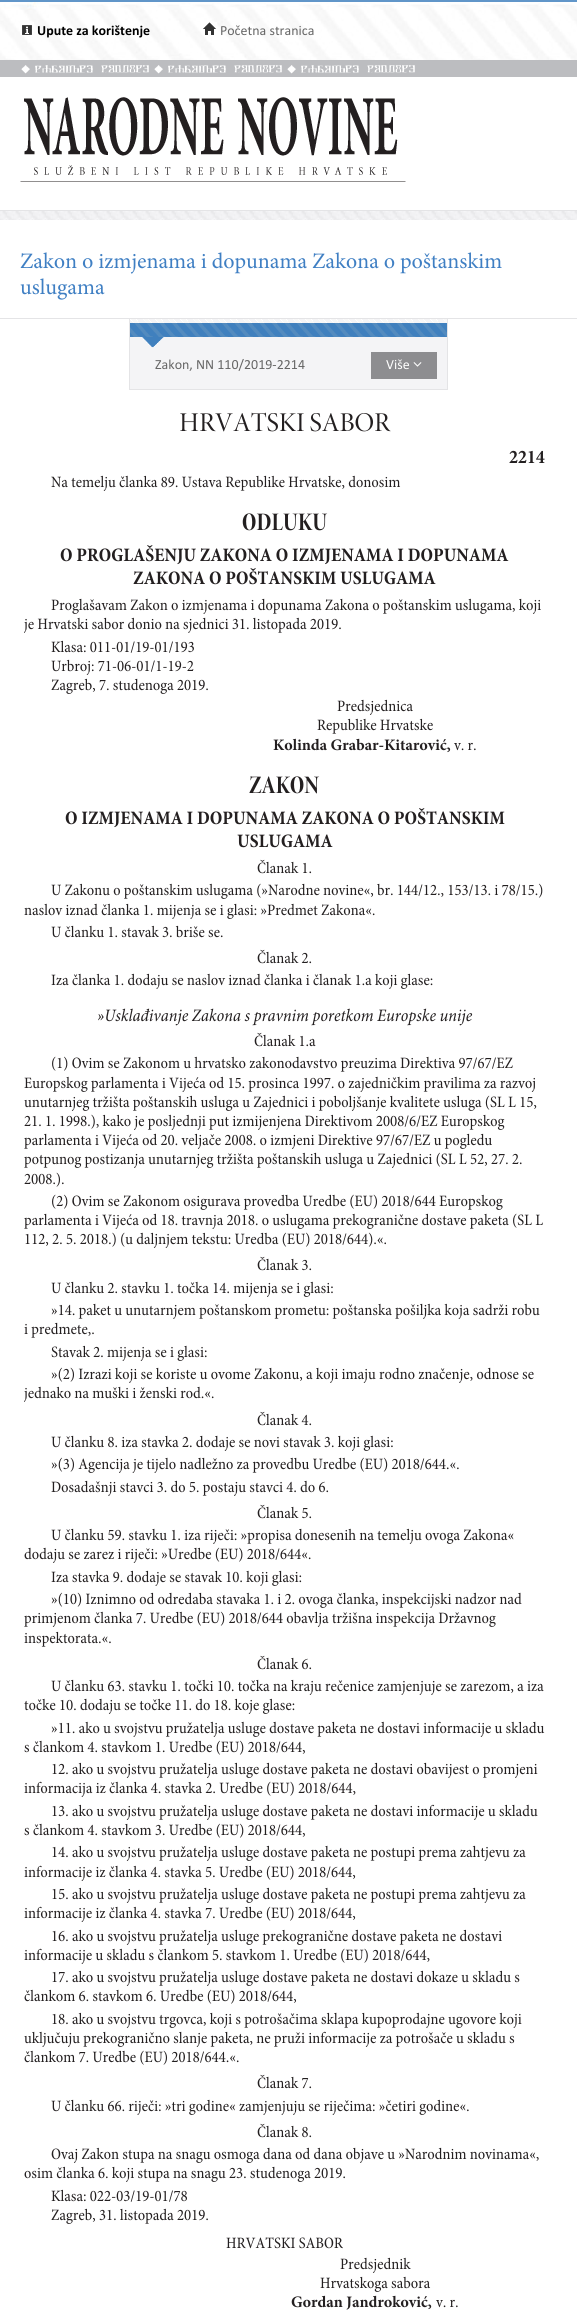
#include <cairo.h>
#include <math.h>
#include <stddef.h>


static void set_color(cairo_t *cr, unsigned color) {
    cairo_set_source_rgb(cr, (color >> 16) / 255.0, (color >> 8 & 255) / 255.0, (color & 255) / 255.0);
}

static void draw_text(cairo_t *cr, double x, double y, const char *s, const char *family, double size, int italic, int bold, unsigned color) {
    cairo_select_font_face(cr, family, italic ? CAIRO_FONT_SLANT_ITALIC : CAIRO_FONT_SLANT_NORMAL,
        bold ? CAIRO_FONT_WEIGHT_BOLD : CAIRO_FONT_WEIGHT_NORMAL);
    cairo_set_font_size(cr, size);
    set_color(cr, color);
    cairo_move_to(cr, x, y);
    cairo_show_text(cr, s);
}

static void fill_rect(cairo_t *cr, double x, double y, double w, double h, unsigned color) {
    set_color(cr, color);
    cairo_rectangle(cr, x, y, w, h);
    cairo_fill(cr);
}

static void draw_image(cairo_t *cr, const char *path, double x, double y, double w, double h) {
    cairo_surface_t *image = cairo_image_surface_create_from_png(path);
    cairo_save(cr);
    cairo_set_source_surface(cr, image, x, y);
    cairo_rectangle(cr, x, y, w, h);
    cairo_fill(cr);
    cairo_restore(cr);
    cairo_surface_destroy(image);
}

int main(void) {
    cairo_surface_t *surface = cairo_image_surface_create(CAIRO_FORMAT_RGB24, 577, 2318);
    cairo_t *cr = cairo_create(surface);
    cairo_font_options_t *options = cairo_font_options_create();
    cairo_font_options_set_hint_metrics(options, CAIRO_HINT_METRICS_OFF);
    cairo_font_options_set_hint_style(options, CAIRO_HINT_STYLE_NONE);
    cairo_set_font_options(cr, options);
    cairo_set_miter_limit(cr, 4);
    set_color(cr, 0xFFFFFF);
    cairo_paint(cr);
    draw_image(cr, "assets/img1.png", 0, 0, 577, 60);
    draw_image(cr, "assets/img2.png", 20, 22, 14, 13);
    draw_text(cr, 37, 35, "Upute za korištenje", "Calibri", 14, 0, 1, 0x000000);
    draw_image(cr, "assets/img3.png", 203, 22, 14, 13);
    draw_text(cr, 220, 35, "Početna stranica", "Calibri", 14, 0, 0, 0x666666);
    fill_rect(cr, 0, 60, 577, 17, 0xBCBDC0);
    draw_image(cr, "assets/img4.png", 21, 65, 128, 9);
    draw_image(cr, "assets/img4.png", 154, 65, 128, 9);
    draw_image(cr, "assets/img4.png", 287, 65, 128, 9);
    draw_image(cr, "assets/img5.png", 20, 97, 386, 85);
    draw_image(cr, "assets/img6.png", 0, 210, 577, 10);
    draw_image(cr, "assets/img7.png", 20, 252, 482, 22);
    draw_image(cr, "assets/img8.png", 20, 278, 85, 22);
    fill_rect(cr, 0, 318, 577, 1, 0xE4E4E6);
    draw_image(cr, "assets/img9.png", 180, 412, 211, 20);
    draw_image(cr, "assets/img10.png", 509, 450, 36, 13);
    draw_image(cr, "assets/img11.png", 51, 475, 350, 16);
    draw_image(cr, "assets/img12.png", 242, 513, 86, 18);
    draw_image(cr, "assets/img13.png", 60, 545, 449, 20);
    draw_image(cr, "assets/img14.png", 133, 568, 303, 17);
    draw_image(cr, "assets/img15.png", 51, 598, 490, 16);
    draw_image(cr, "assets/img16.png", 24, 617, 317, 16);
    draw_image(cr, "assets/img17.png", 51, 640, 143, 13);
    draw_image(cr, "assets/img18.png", 51, 659, 143, 16);
    draw_image(cr, "assets/img19.png", 51, 678, 157, 16);
    draw_image(cr, "assets/img20.png", 337, 699, 76, 16);
    draw_image(cr, "assets/img21.png", 317, 718, 116, 16);
    draw_image(cr, "assets/img22.png", 273, 738, 178, 15);
    draw_image(cr, "assets/img23.png", 454, 742, 22, 9);
    draw_image(cr, "assets/img24.png", 249, 776, 71, 18);
    draw_image(cr, "assets/img25.png", 65, 808, 440, 20);
    draw_image(cr, "assets/img26.png", 237, 834, 96, 14);
    draw_image(cr, "assets/img27.png", 257, 859, 55, 15);
    draw_image(cr, "assets/img28.png", 51, 883, 492, 16);
    draw_image(cr, "assets/img29.png", 24, 903, 351, 16);
    draw_image(cr, "assets/img30.png", 51, 925, 172, 13);
    draw_image(cr, "assets/img31.png", 257, 949, 55, 15);
    draw_image(cr, "assets/img32.png", 51, 973, 382, 16);
    draw_image(cr, "assets/img33.png", 98, 1008, 375, 18);
    draw_image(cr, "assets/img34.png", 254, 1032, 62, 15);
    draw_image(cr, "assets/img35.png", 52, 1056, 461, 16);
    draw_image(cr, "assets/img36.png", 24, 1076, 511, 16);
    draw_image(cr, "assets/img37.png", 24, 1095, 513, 16);
    draw_image(cr, "assets/img38.png", 24, 1114, 481, 16);
    draw_image(cr, "assets/img39.png", 24, 1133, 468, 16);
    draw_image(cr, "assets/img40.png", 24, 1152, 498, 16);
    draw_image(cr, "assets/img41.png", 24, 1172, 40, 15);
    draw_image(cr, "assets/img42.png", 52, 1194, 451, 16);
    draw_image(cr, "assets/img43.png", 24, 1213, 519, 16);
    draw_image(cr, "assets/img44.png", 25, 1232, 361, 16);
    draw_image(cr, "assets/img45.png", 257, 1256, 55, 15);
    draw_image(cr, "assets/img46.png", 51, 1281, 282, 16);
    draw_image(cr, "assets/img47.png", 51, 1303, 489, 16);
    draw_image(cr, "assets/img48.png", 24, 1322, 70, 16);
    draw_image(cr, "assets/img49.png", 51, 1345, 156, 16);
    draw_image(cr, "assets/img50.png", 51, 1367, 483, 16);
    draw_image(cr, "assets/img51.png", 24, 1386, 190, 16);
    draw_image(cr, "assets/img52.png", 257, 1411, 55, 15);
    draw_image(cr, "assets/img53.png", 51, 1435, 342, 16);
    draw_image(cr, "assets/img54.png", 51, 1457, 408, 16);
    draw_image(cr, "assets/img55.png", 51, 1480, 278, 16);
    draw_image(cr, "assets/img56.png", 257, 1504, 55, 15);
    draw_image(cr, "assets/img57.png", 51, 1528, 463, 16);
    draw_image(cr, "assets/img58.png", 24, 1547, 287, 16);
    draw_image(cr, "assets/img59.png", 51, 1570, 251, 16);
    draw_image(cr, "assets/img60.png", 51, 1592, 471, 16);
    draw_image(cr, "assets/img61.png", 24, 1611, 472, 16);
    draw_image(cr, "assets/img62.png", 24, 1631, 87, 16);
    draw_image(cr, "assets/img63.png", 257, 1655, 55, 15);
    draw_image(cr, "assets/img64.png", 51, 1679, 493, 16);
    draw_image(cr, "assets/img65.png", 24, 1698, 271, 16);
    draw_image(cr, "assets/img66.png", 51, 1721, 494, 16);
    draw_image(cr, "assets/img67.png", 24, 1740, 281, 15);
    draw_image(cr, "assets/img68.png", 52, 1762, 486, 16);
    draw_image(cr, "assets/img69.png", 24, 1781, 332, 16);
    draw_image(cr, "assets/img70.png", 52, 1804, 486, 16);
    draw_image(cr, "assets/img71.png", 24, 1823, 281, 15);
    draw_image(cr, "assets/img72.png", 52, 1845, 474, 16);
    draw_image(cr, "assets/img73.png", 24, 1865, 332, 16);
    draw_image(cr, "assets/img74.png", 52, 1887, 474, 16);
    draw_image(cr, "assets/img75.png", 24, 1906, 332, 16);
    draw_image(cr, "assets/img76.png", 52, 1929, 450, 16);
    draw_image(cr, "assets/img77.png", 24, 1948, 406, 16);
    draw_image(cr, "assets/img78.png", 52, 1970, 468, 16);
    draw_image(cr, "assets/img79.png", 24, 1989, 272, 15);
    draw_image(cr, "assets/img80.png", 52, 2012, 470, 16);
    draw_image(cr, "assets/img81.png", 24, 2031, 491, 16);
    draw_image(cr, "assets/img82.png", 24, 2050, 215, 15);
    draw_image(cr, "assets/img83.png", 257, 2074, 55, 15);
    draw_image(cr, "assets/img84.png", 51, 2099, 418, 16);
    draw_image(cr, "assets/img85.png", 257, 2123, 55, 15);
    draw_image(cr, "assets/img86.png", 51, 2147, 488, 16);
    draw_image(cr, "assets/img87.png", 24, 2166, 321, 16);
    draw_image(cr, "assets/img88.png", 51, 2189, 136, 13);
    draw_image(cr, "assets/img89.png", 51, 2208, 157, 16);
    draw_image(cr, "assets/img90.png", 226, 2237, 117, 12);
    draw_image(cr, "assets/img91.png", 340, 2257, 71, 16);
    draw_image(cr, "assets/img92.png", 320, 2276, 111, 16);
    draw_image(cr, "assets/img93.png", 291, 2295, 141, 15);
    draw_image(cr, "assets/img23.png", 436, 2299, 22, 9);
    fill_rect(cr, 130, 337, 317, 52, 0xF4F4F6);
    cairo_rectangle(cr, 129.5, 318.5, 318, 71);
    set_color(cr, 0xE4E4E6);
    cairo_set_line_width(cr, 1);
    cairo_stroke(cr);
    draw_image(cr, "assets/img94.png", 130, 319, 317, 18);
    draw_image(cr, "assets/img95.png", 142, 337, 22, 11);
    draw_text(cr, 155, 369, "Zakon, NN 110/2019-2214", "Calibri", 14, 0, 0, 0x666666);
    fill_rect(cr, 371, 352, 66, 27, 0x8D8D90);
    draw_text(cr, 386, 369, "Više", "Calibri", 14, 0, 0, 0xFFFFFF);
    draw_image(cr, "assets/img96.png", 413, 362, 9, 5);
    cairo_surface_write_to_png(surface, "output.png");
    cairo_font_options_destroy(options);
    cairo_destroy(cr);
    cairo_surface_destroy(surface);
    return 0;
}
